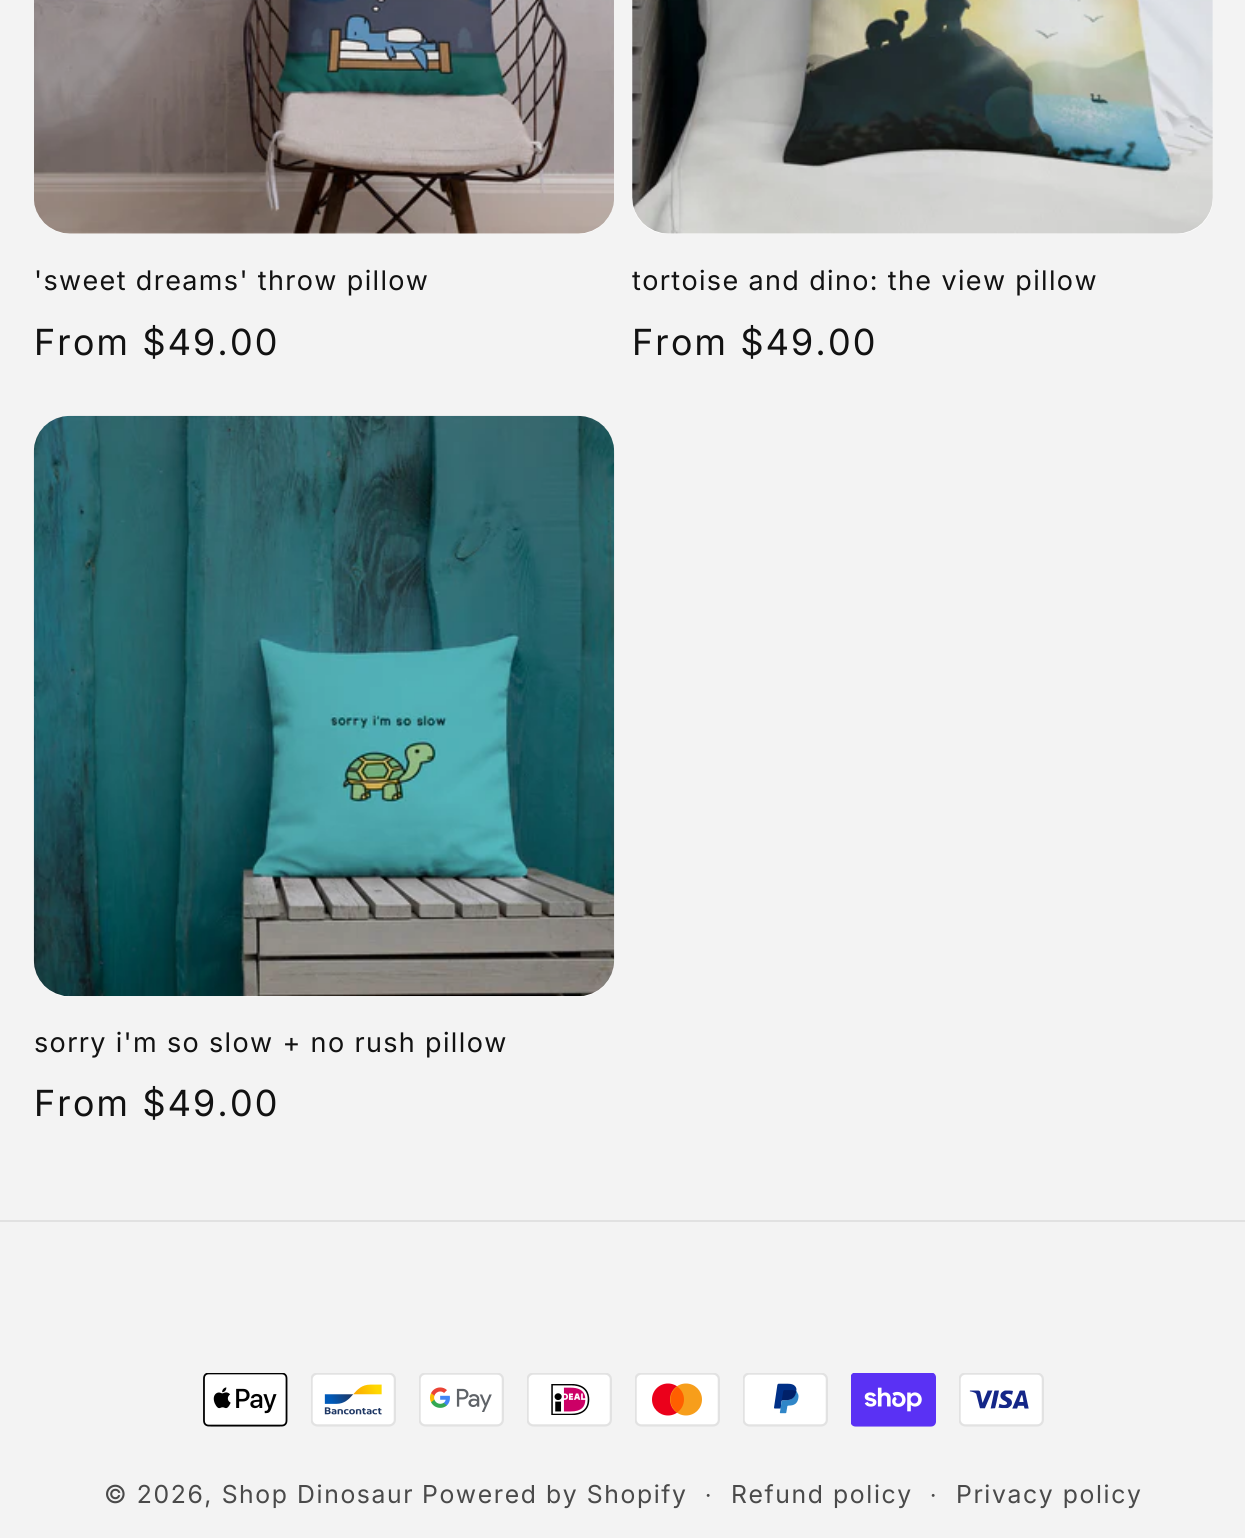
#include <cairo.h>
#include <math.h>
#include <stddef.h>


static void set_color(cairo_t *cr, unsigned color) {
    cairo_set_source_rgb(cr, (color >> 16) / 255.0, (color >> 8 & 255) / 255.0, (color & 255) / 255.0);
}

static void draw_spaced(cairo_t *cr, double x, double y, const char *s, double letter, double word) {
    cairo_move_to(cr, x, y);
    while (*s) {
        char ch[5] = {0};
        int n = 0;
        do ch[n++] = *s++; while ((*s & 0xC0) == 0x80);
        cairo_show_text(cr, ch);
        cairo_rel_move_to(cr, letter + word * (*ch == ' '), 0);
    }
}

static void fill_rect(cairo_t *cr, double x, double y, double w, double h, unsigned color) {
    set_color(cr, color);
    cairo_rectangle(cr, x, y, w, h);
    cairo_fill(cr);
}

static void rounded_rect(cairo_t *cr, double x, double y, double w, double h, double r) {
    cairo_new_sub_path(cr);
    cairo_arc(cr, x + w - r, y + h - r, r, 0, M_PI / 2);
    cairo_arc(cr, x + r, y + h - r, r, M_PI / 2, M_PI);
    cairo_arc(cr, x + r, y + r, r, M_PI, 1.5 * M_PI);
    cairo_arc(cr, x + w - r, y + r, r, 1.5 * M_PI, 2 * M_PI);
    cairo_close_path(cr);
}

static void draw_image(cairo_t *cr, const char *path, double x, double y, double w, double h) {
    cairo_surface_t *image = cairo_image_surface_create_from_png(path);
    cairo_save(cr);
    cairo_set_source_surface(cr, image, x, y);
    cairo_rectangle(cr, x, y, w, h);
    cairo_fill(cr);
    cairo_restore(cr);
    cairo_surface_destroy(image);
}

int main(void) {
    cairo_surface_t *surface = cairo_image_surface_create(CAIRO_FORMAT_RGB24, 1245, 1538);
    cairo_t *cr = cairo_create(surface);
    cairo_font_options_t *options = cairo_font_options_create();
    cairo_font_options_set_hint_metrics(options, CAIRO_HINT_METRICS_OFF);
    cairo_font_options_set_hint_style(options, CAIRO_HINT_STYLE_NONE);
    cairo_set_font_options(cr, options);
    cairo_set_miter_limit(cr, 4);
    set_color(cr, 0xF3F3F3);
    cairo_paint(cr);
    set_color(cr, 0xFFFFFF);
    rounded_rect(cr, 34, -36, 580, 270, 36);
    cairo_fill(cr);
    draw_image(cr, "assets/img1.png", 34, 0, 580, 234);
    cairo_select_font_face(cr, "Inter", CAIRO_FONT_SLANT_NORMAL, CAIRO_FONT_WEIGHT_NORMAL);
    cairo_set_font_size(cr, 27);
    set_color(cr, 0x121212);
    draw_spaced(cr, 34, 290, "'sweet dreams' throw pillow", 1.35, 0);
    cairo_select_font_face(cr, "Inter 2", CAIRO_FONT_SLANT_NORMAL, CAIRO_FONT_WEIGHT_NORMAL);
    cairo_set_font_size(cr, 36);
    draw_spaced(cr, 34, 355, "From $49.00", 2.25, 0);
    set_color(cr, 0xFFFFFF);
    rounded_rect(cr, 632, -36, 581, 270, 36);
    cairo_fill(cr);
    draw_image(cr, "assets/img2.png", 632, 0, 581, 234);
    cairo_select_font_face(cr, "Inter", CAIRO_FONT_SLANT_NORMAL, CAIRO_FONT_WEIGHT_NORMAL);
    cairo_set_font_size(cr, 27);
    set_color(cr, 0x121212);
    draw_spaced(cr, 632, 290, "tortoise and dino: the view pillow", 1.35, 0);
    cairo_select_font_face(cr, "Inter 2", CAIRO_FONT_SLANT_NORMAL, CAIRO_FONT_WEIGHT_NORMAL);
    cairo_set_font_size(cr, 36);
    draw_spaced(cr, 632, 355, "From $49.00", 2.25, 0);
    set_color(cr, 0xFFFFFF);
    rounded_rect(cr, 34, 416, 580, 581, 36);
    cairo_fill(cr);
    draw_image(cr, "assets/img3.png", 33, 415, 582, 582);
    cairo_select_font_face(cr, "Inter", CAIRO_FONT_SLANT_NORMAL, CAIRO_FONT_WEIGHT_NORMAL);
    cairo_set_font_size(cr, 27);
    set_color(cr, 0x121212);
    draw_spaced(cr, 34, 1052, "sorry i'm so slow + no rush pillow", 1.35, 0);
    cairo_select_font_face(cr, "Inter 2", CAIRO_FONT_SLANT_NORMAL, CAIRO_FONT_WEIGHT_NORMAL);
    cairo_set_font_size(cr, 36);
    draw_spaced(cr, 34, 1116, "From $49.00", 2.25, 0);
    fill_rect(cr, 0, 1220, 1245, 2, 0xE1E1E1);
    draw_image(cr, "assets/img4.png", 203, 1373, 85, 54);
    draw_image(cr, "assets/img5.png", 311, 1373, 85, 54);
    draw_image(cr, "assets/img6.png", 419, 1373, 85, 54);
    draw_image(cr, "assets/img7.png", 527, 1373, 85, 54);
    draw_image(cr, "assets/img8.png", 635, 1373, 85, 54);
    draw_image(cr, "assets/img9.png", 743, 1373, 85, 54);
    draw_image(cr, "assets/img10.png", 851, 1373, 85, 54);
    draw_image(cr, "assets/img11.png", 959, 1373, 85, 54);
    cairo_select_font_face(cr, "Inter", CAIRO_FONT_SLANT_NORMAL, CAIRO_FONT_WEIGHT_NORMAL);
    cairo_set_font_size(cr, 24.75);
    set_color(cr, 0x4A4A4A);
    draw_spaced(cr, 104, 1503, "© 2026, Shop Dinosaur", 1.6, 0);
    draw_spaced(cr, 422, 1503, "Powered by Shopify", 1.6, 0);
    cairo_set_font_size(cr, 22);
    draw_spaced(cr, 705, 1503, "·", 1.6, 0);
    cairo_set_font_size(cr, 24.75);
    draw_spaced(cr, 731, 1503, "Refund policy", 1.6, 0);
    cairo_set_font_size(cr, 22);
    draw_spaced(cr, 930, 1503, "·", 1.6, 0);
    cairo_set_font_size(cr, 24.75);
    draw_spaced(cr, 956, 1503, "Privacy policy", 1.6, 0);
    cairo_surface_write_to_png(surface, "output.png");
    cairo_font_options_destroy(options);
    cairo_destroy(cr);
    cairo_surface_destroy(surface);
    return 0;
}
